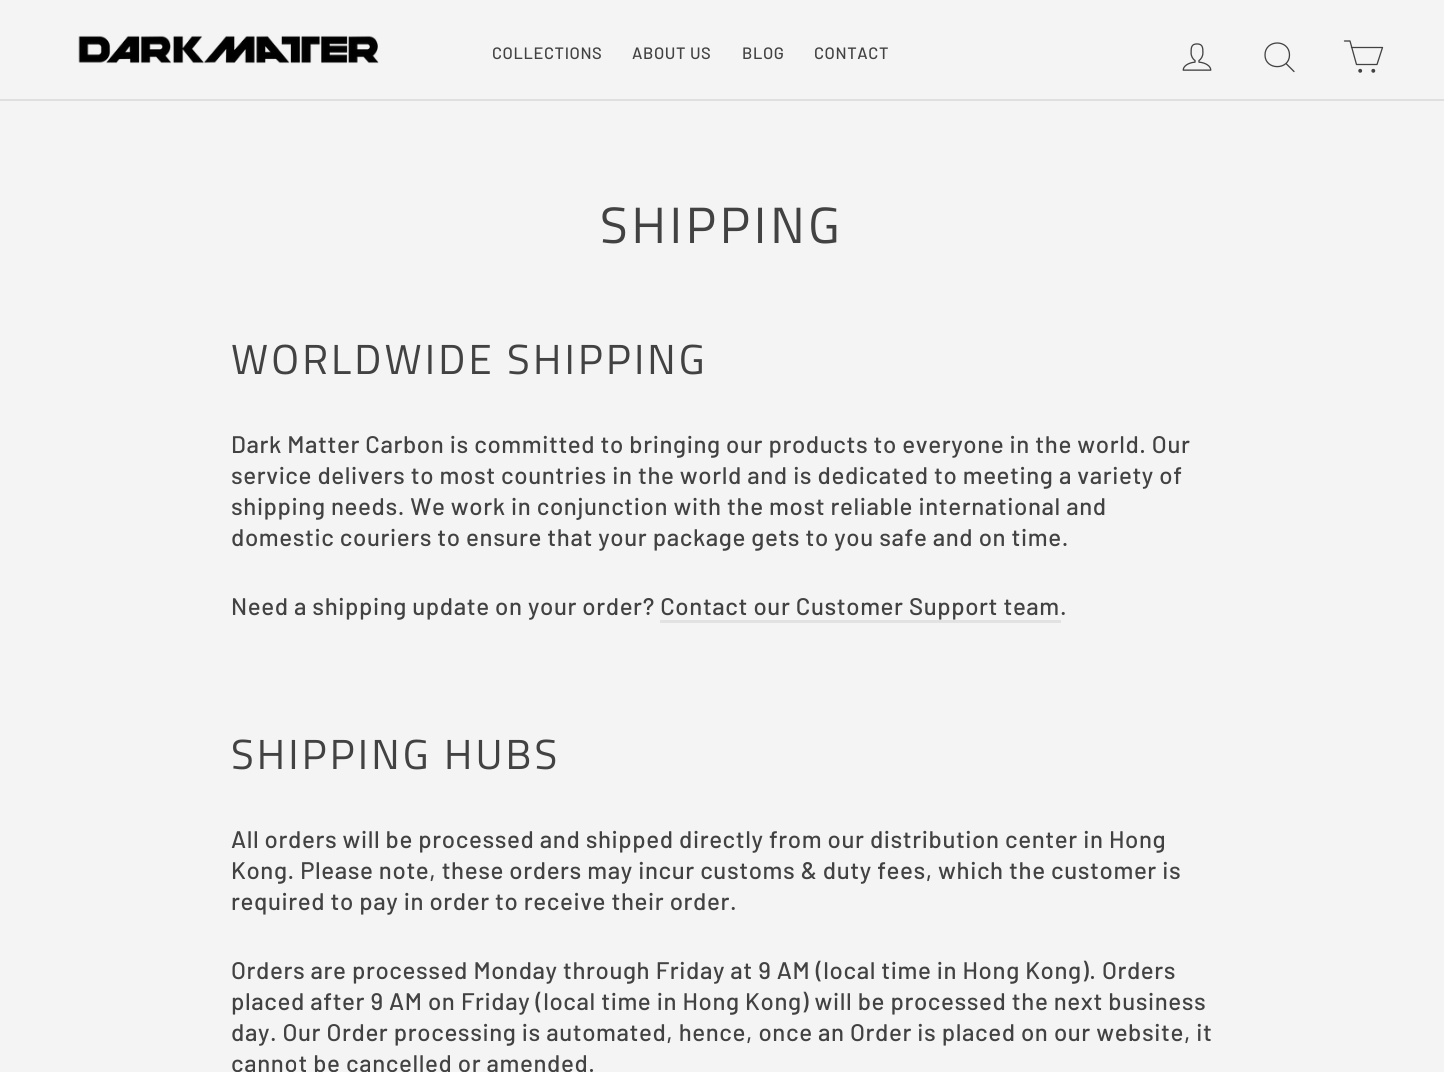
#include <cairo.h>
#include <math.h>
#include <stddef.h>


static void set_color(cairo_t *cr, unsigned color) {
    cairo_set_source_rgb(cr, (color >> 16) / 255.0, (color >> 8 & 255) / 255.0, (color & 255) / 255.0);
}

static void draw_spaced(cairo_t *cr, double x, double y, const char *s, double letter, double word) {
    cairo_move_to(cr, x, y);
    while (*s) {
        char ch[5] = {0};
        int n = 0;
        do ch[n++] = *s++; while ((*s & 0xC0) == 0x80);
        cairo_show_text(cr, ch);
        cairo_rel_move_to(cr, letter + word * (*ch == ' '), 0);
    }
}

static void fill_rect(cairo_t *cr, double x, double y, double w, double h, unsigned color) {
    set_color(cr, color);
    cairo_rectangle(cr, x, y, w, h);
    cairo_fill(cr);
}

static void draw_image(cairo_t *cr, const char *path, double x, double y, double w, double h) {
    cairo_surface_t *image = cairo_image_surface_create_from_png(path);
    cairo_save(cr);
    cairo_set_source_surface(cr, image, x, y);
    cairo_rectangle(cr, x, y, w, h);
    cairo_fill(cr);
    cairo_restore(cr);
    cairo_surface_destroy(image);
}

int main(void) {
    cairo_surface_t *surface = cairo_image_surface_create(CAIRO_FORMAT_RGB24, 1444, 1072);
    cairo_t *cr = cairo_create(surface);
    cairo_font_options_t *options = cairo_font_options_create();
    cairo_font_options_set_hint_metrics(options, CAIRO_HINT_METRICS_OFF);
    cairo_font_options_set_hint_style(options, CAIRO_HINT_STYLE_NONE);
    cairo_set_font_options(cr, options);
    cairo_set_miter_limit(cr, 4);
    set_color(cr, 0xF4F4F4);
    cairo_paint(cr);
    fill_rect(cr, 0, 99, 1444, 2, 0xDEDFE1);
    draw_image(cr, "assets/img1.png", 78, 35, 301, 29);
    cairo_select_font_face(cr, "Barlow Medium", CAIRO_FONT_SLANT_NORMAL, CAIRO_FONT_WEIGHT_NORMAL);
    cairo_set_font_size(cr, 16.5);
    set_color(cr, 0x424242);
    draw_spaced(cr, 492, 59, "COLLECTIONS", 0.6, 0);
    draw_spaced(cr, 632, 59, "ABOUT US", 0.6, 0);
    draw_spaced(cr, 742, 59, "BLOG", 0.6, 0);
    draw_spaced(cr, 814, 59, "CONTACT", 0.6, 0);
    draw_image(cr, "assets/img2.png", 1182, 43, 30, 28);
    cairo_new_path(cr);
    cairo_move_to(cr, 1289.5, 55);
    cairo_curve_to(cr, 1289.5, 70.5, 1265, 70.5, 1265, 55);
    cairo_curve_to(cr, 1265, 39, 1289.5, 39, 1289.5, 55);
    cairo_close_path(cr);
    cairo_move_to(cr, 1294, 71.5);
    cairo_line_to(cr, 1286, 63.5);
    cairo_set_line_width(cr, 1.3);
    cairo_set_line_cap(cr, CAIRO_LINE_CAP_ROUND);
    cairo_set_line_join(cr, CAIRO_LINE_JOIN_ROUND);
    cairo_stroke(cr);
    cairo_new_path(cr);
    cairo_move_to(cr, 1351.5, 47.5);
    cairo_line_to(cr, 1382.5, 47.5);
    cairo_line_to(cr, 1377, 64.5);
    cairo_line_to(cr, 1356.5, 64.5);
    cairo_line_to(cr, 1350, 41);
    cairo_line_to(cr, 1344.5, 41);
    cairo_stroke(cr);
    cairo_arc(cr, 1360.2, 70.8, 1.3, 0, 2 * M_PI);
    cairo_fill_preserve(cr);
    cairo_set_line_cap(cr, CAIRO_LINE_CAP_BUTT);
    cairo_set_line_join(cr, CAIRO_LINE_JOIN_MITER);
    cairo_stroke(cr);
    cairo_arc(cr, 1373.3, 70.8, 1.3, 0, 2 * M_PI);
    cairo_fill_preserve(cr);
    cairo_stroke(cr);
    cairo_select_font_face(cr, "Titillium Web", CAIRO_FONT_SLANT_NORMAL, CAIRO_FONT_WEIGHT_NORMAL);
    cairo_set_font_size(cr, 51);
    draw_spaced(cr, 600, 243, "SHIPPING", 3.75, 0);
    cairo_set_font_size(cr, 42);
    draw_spaced(cr, 231, 374, "WORLDWIDE SHIPPING", 3.1, 0);
    cairo_select_font_face(cr, "Barlow Medium", CAIRO_FONT_SLANT_NORMAL, CAIRO_FONT_WEIGHT_NORMAL);
    cairo_set_font_size(cr, 24);
    draw_spaced(cr, 231, 453, "Dark Matter Carbon is committed to bringing our products to everyone in the world. Our", 0.6, 0);
    draw_spaced(cr, 231, 484, "service delivers to most countries in the world and is dedicated to meeting a variety of", 0.6, 0);
    draw_spaced(cr, 231, 515, "shipping needs. We work in conjunction with the most reliable international and", 0.6, 0);
    draw_spaced(cr, 231, 546, "domestic couriers to ensure that your package gets to you safe and on time.", 0.6, 0);
    draw_spaced(cr, 231, 615, "Need a shipping update on your order? Contact our Customer Support team", 0.6, 0);
    draw_spaced(cr, 1060, 615, ".", 0.6, 0);
    fill_rect(cr, 660, 620, 401, 3, 0xE2E2E2);
    cairo_select_font_face(cr, "Titillium Web", CAIRO_FONT_SLANT_NORMAL, CAIRO_FONT_WEIGHT_NORMAL);
    cairo_set_font_size(cr, 42);
    set_color(cr, 0x424242);
    draw_spaced(cr, 231, 769, "SHIPPING HUBS", 3.1, 0);
    cairo_select_font_face(cr, "Barlow Medium", CAIRO_FONT_SLANT_NORMAL, CAIRO_FONT_WEIGHT_NORMAL);
    cairo_set_font_size(cr, 24);
    draw_spaced(cr, 231, 848, "All orders will be processed and shipped directly from our distribution center in Hong", 0.6, 0);
    draw_spaced(cr, 231, 879, "Kong. Please note, these orders may incur customs & duty fees, which the customer is", 0.6, 0);
    draw_spaced(cr, 231, 910, "required to pay in order to receive their order.", 0.6, 0);
    draw_spaced(cr, 231, 979, "Orders are processed Monday through Friday at 9 AM (local time in Hong Kong). Orders", 0.6, 0);
    draw_spaced(cr, 231, 1010, "placed after 9 AM on Friday (local time in Hong Kong) will be processed the next business", 0.6, 0);
    draw_spaced(cr, 231, 1041, "day. Our Order processing is automated, hence, once an Order is placed on our website, it", 0.6, 0);
    draw_spaced(cr, 231, 1072, "cannot be cancelled or amended.", 0.6, 0);
    cairo_surface_write_to_png(surface, "output.png");
    cairo_font_options_destroy(options);
    cairo_destroy(cr);
    cairo_surface_destroy(surface);
    return 0;
}
